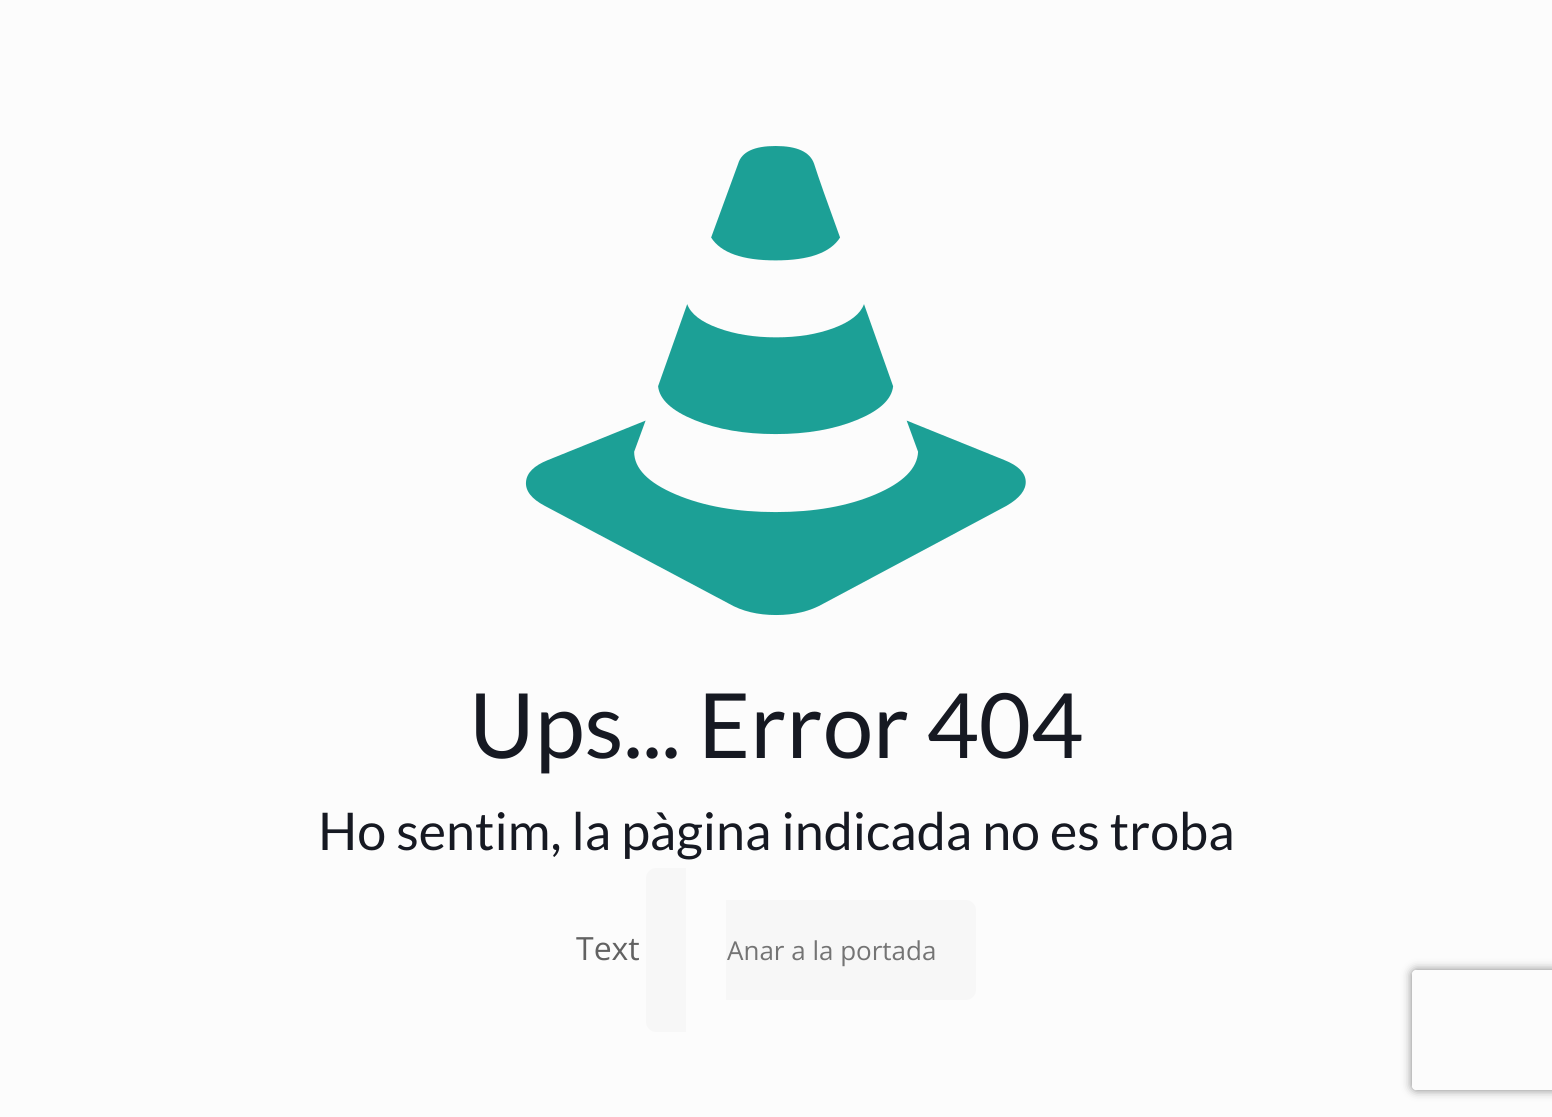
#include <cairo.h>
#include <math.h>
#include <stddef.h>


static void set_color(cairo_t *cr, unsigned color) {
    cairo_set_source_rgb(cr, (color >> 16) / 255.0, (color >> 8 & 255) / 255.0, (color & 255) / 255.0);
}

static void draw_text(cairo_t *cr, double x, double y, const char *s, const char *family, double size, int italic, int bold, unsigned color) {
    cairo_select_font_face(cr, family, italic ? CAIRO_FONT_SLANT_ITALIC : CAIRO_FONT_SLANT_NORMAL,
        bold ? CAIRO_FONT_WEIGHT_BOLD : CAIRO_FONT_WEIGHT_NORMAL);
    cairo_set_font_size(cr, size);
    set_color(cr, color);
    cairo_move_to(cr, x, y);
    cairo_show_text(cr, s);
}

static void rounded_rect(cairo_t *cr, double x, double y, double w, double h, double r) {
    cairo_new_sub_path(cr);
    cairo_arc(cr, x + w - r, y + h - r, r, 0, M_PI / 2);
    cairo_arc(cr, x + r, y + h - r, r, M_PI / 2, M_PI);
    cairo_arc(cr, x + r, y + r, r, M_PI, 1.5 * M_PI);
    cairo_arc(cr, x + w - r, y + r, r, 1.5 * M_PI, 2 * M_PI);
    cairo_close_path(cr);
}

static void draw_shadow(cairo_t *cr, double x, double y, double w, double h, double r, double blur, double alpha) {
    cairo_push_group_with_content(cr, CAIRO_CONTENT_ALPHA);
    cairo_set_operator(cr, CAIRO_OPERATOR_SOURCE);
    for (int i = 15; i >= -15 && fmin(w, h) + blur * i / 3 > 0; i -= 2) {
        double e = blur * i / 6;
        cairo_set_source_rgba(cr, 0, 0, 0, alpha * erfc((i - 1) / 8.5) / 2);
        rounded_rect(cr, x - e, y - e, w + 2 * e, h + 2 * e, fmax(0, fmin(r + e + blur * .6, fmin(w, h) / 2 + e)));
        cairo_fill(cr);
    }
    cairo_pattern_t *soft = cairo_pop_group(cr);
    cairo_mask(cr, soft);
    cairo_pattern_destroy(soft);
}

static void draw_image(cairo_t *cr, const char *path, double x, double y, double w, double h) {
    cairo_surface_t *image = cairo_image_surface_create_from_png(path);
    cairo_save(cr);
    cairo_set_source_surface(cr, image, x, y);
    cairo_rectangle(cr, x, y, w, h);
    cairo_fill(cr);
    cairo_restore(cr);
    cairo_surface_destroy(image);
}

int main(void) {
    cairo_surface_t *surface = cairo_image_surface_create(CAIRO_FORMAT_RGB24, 1552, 1117);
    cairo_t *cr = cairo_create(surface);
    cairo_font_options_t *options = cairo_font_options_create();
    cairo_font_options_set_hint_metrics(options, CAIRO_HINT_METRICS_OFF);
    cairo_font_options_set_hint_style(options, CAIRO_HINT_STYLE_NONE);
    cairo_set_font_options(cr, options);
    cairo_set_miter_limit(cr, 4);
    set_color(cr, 0xFCFCFC);
    cairo_paint(cr);
    draw_image(cr, "assets/img1.png", 525, 146, 501, 470);
    draw_text(cr, 469, 758, "Ups... Error 404", "Lato", 90, 0, 0, 0x161922);
    draw_text(cr, 318, 850, "Ho sentim, la pàgina indicada no es troba", "Lato", 52, 0, 0, 0x161922);
    draw_text(cr, 576, 960, "Text", "Open Sans", 32, 0, 0, 0x626262);
    set_color(cr, 0xF7F7F7);
    cairo_new_path(cr);
    cairo_move_to(cr, 726, 900);
    cairo_line_to(cr, 966, 900);
    cairo_curve_to(cr, 971.5, 900, 976, 904.5, 976, 910);
    cairo_line_to(cr, 976, 990);
    cairo_curve_to(cr, 976, 995.5, 971.5, 1000, 966, 1000);
    cairo_line_to(cr, 726, 1000);
    cairo_close_path(cr);
    cairo_fill(cr);
    draw_text(cr, 727, 960, "Anar a la portada", "Open Sans", 26, 0, 0, 0x747474);
    set_color(cr, 0xF7F7F7);
    cairo_new_path(cr);
    cairo_move_to(cr, 656, 868);
    cairo_line_to(cr, 686, 868);
    cairo_line_to(cr, 686, 1032);
    cairo_line_to(cr, 656, 1032);
    cairo_curve_to(cr, 650.5, 1032, 646, 1027.5, 646, 1022);
    cairo_line_to(cr, 646, 878);
    cairo_curve_to(cr, 646, 872.5, 650.5, 868, 656, 868);
    cairo_close_path(cr);
    cairo_fill(cr);
    cairo_save(cr);
    cairo_set_fill_rule(cr, CAIRO_FILL_RULE_EVEN_ODD);
    cairo_new_path(cr);
    cairo_move_to(cr, 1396, 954);
    cairo_line_to(cr, 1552, 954);
    cairo_line_to(cr, 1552, 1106);
    cairo_line_to(cr, 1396, 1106);
    cairo_close_path(cr);
    cairo_move_to(cr, 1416, 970);
    cairo_line_to(cr, 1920, 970);
    cairo_curve_to(cr, 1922, 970, 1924, 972, 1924, 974);
    cairo_line_to(cr, 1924, 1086);
    cairo_curve_to(cr, 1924, 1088, 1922, 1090, 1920, 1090);
    cairo_line_to(cr, 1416, 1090);
    cairo_curve_to(cr, 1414, 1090, 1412, 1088, 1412, 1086);
    cairo_line_to(cr, 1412, 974);
    cairo_curve_to(cr, 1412, 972, 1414, 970, 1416, 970);
    cairo_close_path(cr);
    cairo_clip(cr);
    set_color(cr, 0x808080);
    draw_shadow(cr, 1412, 970, 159, 120, 4, 5, 1);
    cairo_restore(cr);
    cairo_surface_write_to_png(surface, "output.png");
    cairo_font_options_destroy(options);
    cairo_destroy(cr);
    cairo_surface_destroy(surface);
    return 0;
}
